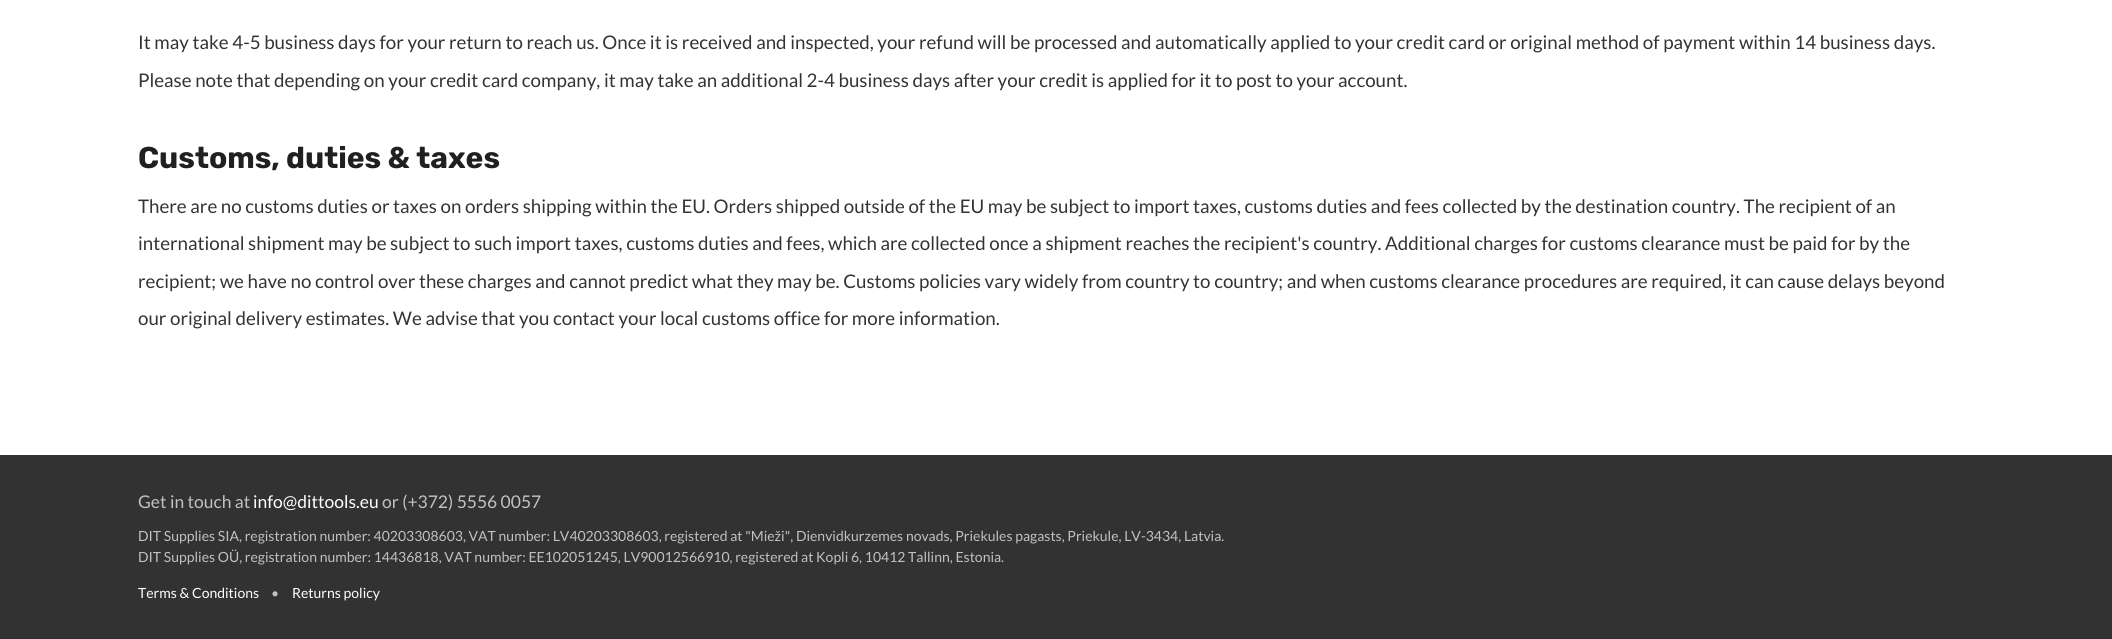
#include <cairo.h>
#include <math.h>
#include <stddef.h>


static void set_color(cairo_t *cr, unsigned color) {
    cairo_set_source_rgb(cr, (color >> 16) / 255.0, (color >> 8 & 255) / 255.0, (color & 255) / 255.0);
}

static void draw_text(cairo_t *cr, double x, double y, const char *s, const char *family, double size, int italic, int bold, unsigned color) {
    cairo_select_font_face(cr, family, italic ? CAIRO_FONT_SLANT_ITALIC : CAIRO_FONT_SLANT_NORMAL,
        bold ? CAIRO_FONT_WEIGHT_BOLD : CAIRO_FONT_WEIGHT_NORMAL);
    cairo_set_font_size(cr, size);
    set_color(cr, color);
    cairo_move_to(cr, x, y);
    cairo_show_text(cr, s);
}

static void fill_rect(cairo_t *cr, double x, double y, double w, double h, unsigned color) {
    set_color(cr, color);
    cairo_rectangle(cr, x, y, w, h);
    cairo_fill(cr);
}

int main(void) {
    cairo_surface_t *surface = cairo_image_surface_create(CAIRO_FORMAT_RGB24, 2112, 639);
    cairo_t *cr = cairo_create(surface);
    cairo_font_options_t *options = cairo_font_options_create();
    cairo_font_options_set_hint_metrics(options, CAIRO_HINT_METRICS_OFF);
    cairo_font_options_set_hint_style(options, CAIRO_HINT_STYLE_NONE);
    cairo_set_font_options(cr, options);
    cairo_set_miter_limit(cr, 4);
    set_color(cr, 0xFFFFFF);
    cairo_paint(cr);
    draw_text(cr, 138, 49, "It may take 4-5 business days for your return to reach us. Once it is received and inspected, your refund will be processed and automatically applied to your credit card or original method of payment within 14 business days.", "Lato", 18.75, 0, 0, 0x333333);
    draw_text(cr, 138, 87, "Please note that depending on your credit card company, it may take an additional 2-4 business days after your credit is applied for it to post to your account.", "Lato", 18.75, 0, 0, 0x333333);
    draw_text(cr, 138, 168, "Customs, duties & taxes", "Rubik", 30, 0, 1, 0x1F2021);
    draw_text(cr, 138, 213, "There are no customs duties or taxes on orders shipping within the EU. Orders shipped outside of the EU may be subject to import taxes, customs duties and fees collected by the destination country. The recipient of an", "Lato", 18.75, 0, 0, 0x333333);
    draw_text(cr, 138, 250, "international shipment may be subject to such import taxes, customs duties and fees, which are collected once a shipment reaches the recipient's country. Additional charges for customs clearance must be paid for by the", "Lato", 18.75, 0, 0, 0x333333);
    draw_text(cr, 138, 288, "recipient; we have no control over these charges and cannot predict what they may be. Customs policies vary widely from country to country; and when customs clearance procedures are required, it can cause delays beyond", "Lato", 18.75, 0, 0, 0x333333);
    draw_text(cr, 138, 325, "our original delivery estimates. We advise that you contact your local customs office for more information.", "Lato", 18.75, 0, 0, 0x333333);
    fill_rect(cr, 0, 455, 2112, 184, 0x323232);
    draw_text(cr, 138, 508, "Get in touch at", "Lato", 17.5, 0, 0, 0xC1C1C1);
    draw_text(cr, 253, 508, "info@dittools.eu", "Lato", 17.5, 0, 0, 0xFFFFFF);
    draw_text(cr, 382, 508, "or (+372) 5556 0057", "Lato", 17.5, 0, 0, 0xC1C1C1);
    draw_text(cr, 138, 541, "DIT Supplies SIA, registration number: 40203308603, VAT number: LV40203308603, registered at \"Mieži\", Dienvidkurzemes novads, Priekules pagasts, Priekule, LV-3434, Latvia.", "Lato", 14, 0, 0, 0xC1C1C1);
    draw_text(cr, 138, 562, "DIT Supplies OÜ, registration number: 14436818, VAT number: EE102051245, LV90012566910, registered at Kopli 6, 10412 Tallinn, Estonia.", "Lato", 14, 0, 0, 0xC1C1C1);
    draw_text(cr, 138, 598, "Terms & Conditions", "Lato", 14, 0, 0, 0xFFFFFF);
    draw_text(cr, 271, 598, "•", "Lato", 14, 0, 0, 0xC1C1C1);
    draw_text(cr, 292, 598, "Returns policy", "Lato", 14, 0, 0, 0xFFFFFF);
    cairo_surface_write_to_png(surface, "output.png");
    cairo_font_options_destroy(options);
    cairo_destroy(cr);
    cairo_surface_destroy(surface);
    return 0;
}
